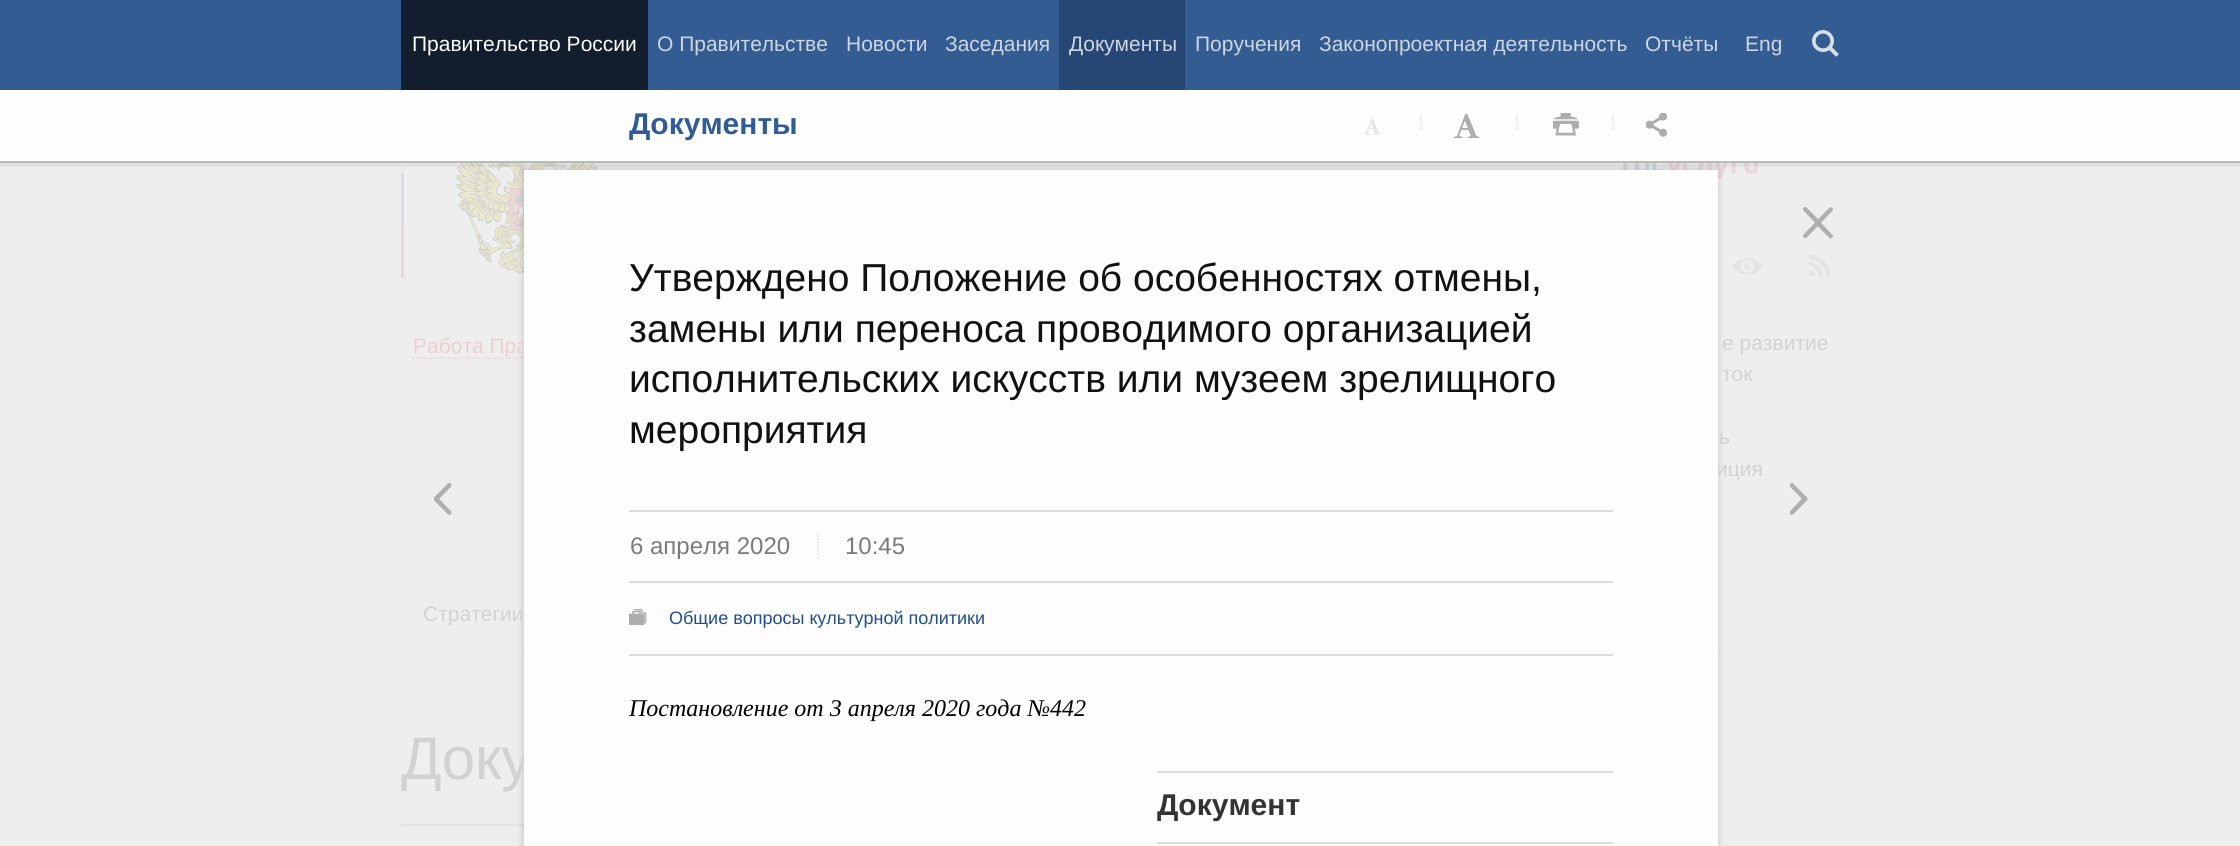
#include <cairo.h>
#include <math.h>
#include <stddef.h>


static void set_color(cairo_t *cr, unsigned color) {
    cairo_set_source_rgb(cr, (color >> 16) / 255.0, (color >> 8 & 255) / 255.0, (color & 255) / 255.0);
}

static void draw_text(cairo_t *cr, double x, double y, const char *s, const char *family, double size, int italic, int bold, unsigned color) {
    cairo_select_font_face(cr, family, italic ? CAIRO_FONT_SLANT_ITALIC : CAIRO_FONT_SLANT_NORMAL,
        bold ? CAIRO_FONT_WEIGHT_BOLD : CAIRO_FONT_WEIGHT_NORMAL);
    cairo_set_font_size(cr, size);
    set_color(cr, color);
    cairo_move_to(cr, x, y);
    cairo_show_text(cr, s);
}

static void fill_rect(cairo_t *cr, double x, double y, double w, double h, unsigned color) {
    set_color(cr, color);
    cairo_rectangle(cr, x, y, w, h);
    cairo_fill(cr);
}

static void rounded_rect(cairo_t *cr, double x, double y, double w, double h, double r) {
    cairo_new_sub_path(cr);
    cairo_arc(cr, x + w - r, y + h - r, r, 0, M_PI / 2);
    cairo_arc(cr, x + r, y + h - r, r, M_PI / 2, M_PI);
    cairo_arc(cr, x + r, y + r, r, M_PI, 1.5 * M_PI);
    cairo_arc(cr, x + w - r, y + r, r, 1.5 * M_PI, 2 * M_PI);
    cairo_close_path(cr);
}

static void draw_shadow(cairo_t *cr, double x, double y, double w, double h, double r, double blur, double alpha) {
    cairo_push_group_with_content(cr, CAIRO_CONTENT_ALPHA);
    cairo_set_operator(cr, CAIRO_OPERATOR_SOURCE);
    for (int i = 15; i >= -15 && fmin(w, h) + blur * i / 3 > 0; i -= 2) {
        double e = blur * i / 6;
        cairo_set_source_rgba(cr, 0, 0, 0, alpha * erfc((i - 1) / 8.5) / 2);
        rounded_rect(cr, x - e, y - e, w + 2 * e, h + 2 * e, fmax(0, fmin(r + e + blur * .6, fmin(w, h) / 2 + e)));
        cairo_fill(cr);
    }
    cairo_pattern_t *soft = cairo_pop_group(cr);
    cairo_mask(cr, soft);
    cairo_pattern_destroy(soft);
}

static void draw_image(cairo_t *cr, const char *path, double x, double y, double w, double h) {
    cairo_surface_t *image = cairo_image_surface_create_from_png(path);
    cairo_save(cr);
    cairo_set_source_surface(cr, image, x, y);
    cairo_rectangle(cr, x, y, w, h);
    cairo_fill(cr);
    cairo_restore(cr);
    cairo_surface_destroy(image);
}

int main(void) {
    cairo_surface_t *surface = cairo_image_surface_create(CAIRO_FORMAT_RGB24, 2240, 846);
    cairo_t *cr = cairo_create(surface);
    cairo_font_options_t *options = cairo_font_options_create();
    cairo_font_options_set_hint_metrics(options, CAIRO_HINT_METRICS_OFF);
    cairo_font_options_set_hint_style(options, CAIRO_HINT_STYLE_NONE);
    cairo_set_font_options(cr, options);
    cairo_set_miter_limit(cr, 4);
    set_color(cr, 0xEEEEEE);
    cairo_paint(cr);
    draw_image(cr, "assets/img8.png", 456, 120, 141, 153);
    draw_image(cr, "assets/img9.png", 1623, 157, 135, 22);
    cairo_new_path(cr);
    cairo_move_to(cr, 412.5, 358);
    cairo_line_to(cr, 637.5, 358);
    set_color(cr, 0xE9D0CE);
    cairo_set_line_width(cr, 1.5);
    cairo_set_dash(cr, (double[]){1.5, 1.5}, 2, 0);
    cairo_stroke(cr);
    fill_rect(cr, 401, 650, 1440, 1, 0xEAEAEA);
    fill_rect(cr, 401, 824, 123, 2, 0xE3E3E3);
    set_color(cr, 0x000000);
    draw_shadow(cr, 522, 168, 1197, 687, 0, 3, 0.14);
    fill_rect(cr, 401, 120, 3, 53, 0xEBEBEB);
    cairo_rectangle(cr, -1.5, -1.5, 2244, 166);
    cairo_set_source_rgba(cr, 0.196, 0.196, 0.196, 0.07);
    cairo_set_line_width(cr, 5);
    cairo_set_dash(cr, NULL, 0, 0);
    cairo_stroke(cr);
    fill_rect(cr, 0, 0, 2240, 90, 0x325C92);
    fill_rect(cr, 401, 0, 247, 90, 0x121D2D);
    draw_text(cr, 412, 51, "Правительство России", "Liberation Sans", 21, 0, 0, 0xFFFFFF);
    draw_text(cr, 657, 51, "О Правительстве", "Liberation Sans", 21, 0, 0, 0xCDD6E1);
    draw_text(cr, 846, 51, "Новости", "Liberation Sans", 21, 0, 0, 0xCDD6E1);
    draw_text(cr, 945, 51, "Заседания", "Liberation Sans", 21, 0, 0, 0xCDD6E1);
    fill_rect(cr, 1059, 0, 126, 90, 0x264773);
    draw_text(cr, 1069, 51, "Документы", "Liberation Sans", 21, 0, 0, 0xCDD6E1);
    draw_text(cr, 1195, 51, "Поручения", "Liberation Sans", 21, 0, 0, 0xCDD6E1);
    draw_text(cr, 1319, 51, "Законопроектная деятельность", "Liberation Sans", 21, 0, 0, 0xCDD6E1);
    draw_text(cr, 1645, 51, "Отчёты", "Liberation Sans", 21, 0, 0, 0xCDD6E1);
    draw_text(cr, 1745, 51, "Eng", "Liberation Sans", 21, 0, 0, 0xCDD6E1);
    draw_image(cr, "assets/img1.png", 1812, 30, 27, 27);
    cairo_set_source_rgba(cr, 1, 1, 1, 0.95);
    cairo_rectangle(cr, 0, 90, 2240, 71);
    cairo_fill(cr);
    fill_rect(cr, 0, 161, 2240, 2, 0xBABABA);
    draw_text(cr, 629, 134, "Документы", "Liberation Sans", 30, 0, 1, 0x305B94);
    draw_image(cr, "assets/img2.png", 1364, 119, 17, 16);
    cairo_new_path(cr);
    cairo_move_to(cr, 1421, 115.5);
    cairo_line_to(cr, 1421, 129);
    set_color(cr, 0xDBDBDB);
    cairo_set_line_width(cr, 1.5);
    cairo_set_dash(cr, (double[]){1.5, 1.5}, 2, 0);
    cairo_stroke(cr);
    draw_image(cr, "assets/img3.png", 1454, 114, 26, 24);
    cairo_new_path(cr);
    cairo_move_to(cr, 1517, 115.5);
    cairo_line_to(cr, 1517, 129);
    cairo_stroke(cr);
    draw_image(cr, "assets/img4.png", 1553, 113, 26, 23);
    cairo_new_path(cr);
    cairo_move_to(cr, 1613, 115.5);
    cairo_line_to(cr, 1613, 129);
    cairo_stroke(cr);
    draw_image(cr, "assets/img5.png", 1646, 113, 22, 24);
    draw_text(cr, 413, 353, "Работа Пра", "Liberation Sans", 21, 0, 0, 0xE9D0CE);
    draw_text(cr, 1716, 476, "иция", "Liberation Sans", 21, 0, 0, 0xD2D2D2);
    draw_text(cr, 401, 779, "Доку", "Liberation Sans", 60, 0, 0, 0xD2D2D2);
    fill_rect(cr, 524, 170, 1194, 676, 0xFDFDFD);
    draw_text(cr, 629, 291, "Утверждено Положение об особенностях отмены,", "Liberation Sans", 39, 0, 0, 0x111111);
    draw_text(cr, 629, 342, "замены или переноса проводимого организацией", "Liberation Sans", 39, 0, 0, 0x111111);
    draw_text(cr, 629, 392, "исполнительских искусств или музеем зрелищного", "Liberation Sans", 39, 0, 0, 0x111111);
    draw_text(cr, 629, 443, "мероприятия", "Liberation Sans", 39, 0, 0, 0x111111);
    fill_rect(cr, 629, 510, 984, 2, 0xDCDCDC);
    fill_rect(cr, 629, 581, 984, 2, 0xDCDCDC);
    draw_text(cr, 630, 554, "6 апреля 2020", "Liberation Sans", 24, 0, 0, 0x7B7B7B);
    draw_text(cr, 845, 554, "10:45", "Liberation Sans", 24, 0, 0, 0x7B7B7B);
    cairo_new_path(cr);
    cairo_move_to(cr, 818, 532.5);
    cairo_line_to(cr, 818, 558);
    set_color(cr, 0xDCDCDC);
    cairo_stroke(cr);
    draw_image(cr, "assets/img6.png", 629, 609, 18, 17);
    fill_rect(cr, 629, 654, 984, 2, 0xDCDCDC);
    draw_text(cr, 669, 624, "Общие вопросы культурной политики", "Liberation Sans", 18, 0, 0, 0x204E8A);
    draw_text(cr, 629, 716, "Постановление от 3 апреля 2020 года №442", "Liberation Serif", 24, 1, 0, 0x000000);
    fill_rect(cr, 1157, 771, 456, 2, 0xDCDCDC);
    fill_rect(cr, 1157, 842, 456, 2, 0xDCDCDC);
    cairo_save(cr);
    cairo_rectangle(cr, 1157, 771, 456, 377);
    cairo_clip(cr);
    draw_text(cr, 1157, 815, "Документ", "Liberation Sans", 30, 0, 1, 0x333333);
    cairo_restore(cr);
    draw_image(cr, "assets/img7.png", 1803, 207, 30, 32);
    fill_rect(cr, 401, 173, 3, 52, 0xD6DDE5);
    fill_rect(cr, 401, 225, 3, 53, 0xECD7D5);
    draw_image(cr, "assets/img10.png", 1733, 258, 30, 17);
    draw_image(cr, "assets/img11.png", 1808, 254, 23, 23);
    draw_text(cr, 1722, 350, "е развитие", "Liberation Sans", 21, 0, 0, 0xD2D2D2);
    draw_text(cr, 1722, 381, "ток", "Liberation Sans", 21, 0, 0, 0xD2D2D2);
    draw_text(cr, 1719, 444, "ь", "Liberation Sans", 21, 0, 0, 0xD2D2D2);
    draw_text(cr, 423, 621, "Стратегии", "Liberation Sans", 21, 0, 0, 0xD2D2D2);
    draw_image(cr, "assets/img12.png", 434, 483, 18, 32);
    draw_image(cr, "assets/img13.png", 1790, 483, 18, 32);
    cairo_surface_write_to_png(surface, "output.png");
    cairo_font_options_destroy(options);
    cairo_destroy(cr);
    cairo_surface_destroy(surface);
    return 0;
}
